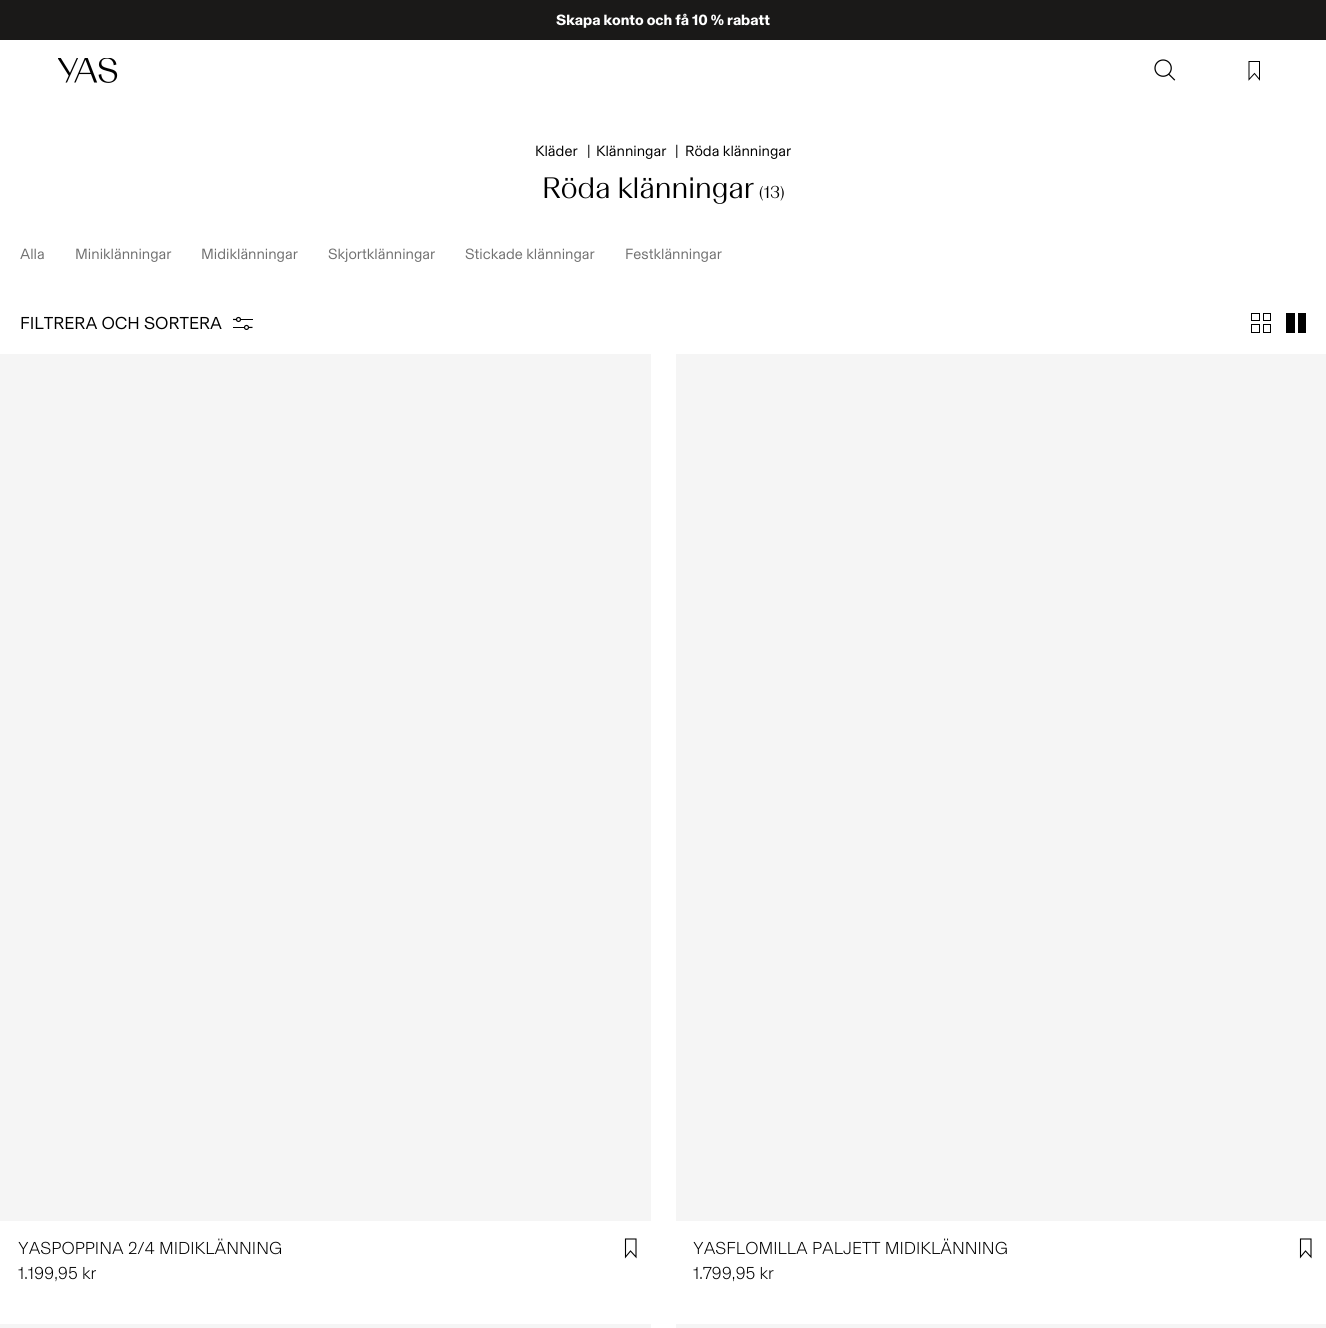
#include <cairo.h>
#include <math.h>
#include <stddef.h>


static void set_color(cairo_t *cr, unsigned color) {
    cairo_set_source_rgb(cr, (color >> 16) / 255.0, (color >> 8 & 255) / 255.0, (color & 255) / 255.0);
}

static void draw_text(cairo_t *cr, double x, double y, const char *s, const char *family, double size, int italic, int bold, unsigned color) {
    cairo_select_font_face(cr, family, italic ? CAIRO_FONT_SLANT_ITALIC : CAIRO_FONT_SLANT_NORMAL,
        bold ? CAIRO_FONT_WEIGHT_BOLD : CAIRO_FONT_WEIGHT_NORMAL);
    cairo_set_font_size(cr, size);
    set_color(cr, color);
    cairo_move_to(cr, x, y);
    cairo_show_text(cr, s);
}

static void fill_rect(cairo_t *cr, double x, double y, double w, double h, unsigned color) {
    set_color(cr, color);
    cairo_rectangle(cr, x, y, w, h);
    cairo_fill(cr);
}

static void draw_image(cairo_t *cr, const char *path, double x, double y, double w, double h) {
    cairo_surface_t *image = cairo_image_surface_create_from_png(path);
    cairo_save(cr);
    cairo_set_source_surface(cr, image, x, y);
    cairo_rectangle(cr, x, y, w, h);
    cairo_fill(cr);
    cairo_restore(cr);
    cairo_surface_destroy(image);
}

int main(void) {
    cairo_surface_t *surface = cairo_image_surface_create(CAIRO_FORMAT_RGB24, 1326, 1328);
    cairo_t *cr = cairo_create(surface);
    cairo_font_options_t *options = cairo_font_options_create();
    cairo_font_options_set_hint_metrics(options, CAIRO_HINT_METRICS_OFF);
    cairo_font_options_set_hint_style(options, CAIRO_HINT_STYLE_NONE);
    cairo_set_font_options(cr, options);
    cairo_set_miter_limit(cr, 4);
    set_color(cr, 0xFFFFFF);
    cairo_paint(cr);
    fill_rect(cr, 0, 0, 1326, 40, 0x1A1918);
    draw_text(cr, 556, 25, "Skapa konto och få 10 % rabatt", "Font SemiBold", 15, 0, 0, 0xFFFFFF);
    draw_image(cr, "assets/img1.png", 58, 58, 60, 25);
    draw_image(cr, "assets/img2.png", 1154, 59, 22, 22);
    cairo_new_path(cr);
    cairo_move_to(cr, 1249, 61.5);
    cairo_line_to(cr, 1249, 79.5);
    cairo_line_to(cr, 1254.5, 73.5);
    cairo_line_to(cr, 1259.5, 79.5);
    cairo_line_to(cr, 1259.5, 61.5);
    cairo_close_path(cr);
    set_color(cr, 0x000000);
    cairo_set_line_width(cr, 1);
    cairo_stroke(cr);
    draw_text(cr, 535, 156, "Kläder", "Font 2", 15, 0, 0, 0x000000);
    draw_text(cr, 587, 156, "|", "Font 2", 15, 0, 0, 0x000000);
    draw_text(cr, 596, 156, "Klänningar", "Font 2", 15, 0, 0, 0x000000);
    draw_text(cr, 675, 156, "|", "Font 2", 15, 0, 0, 0x000000);
    draw_text(cr, 685, 156, "Röda klänningar", "Font 2", 15, 0, 0, 0x000000);
    draw_text(cr, 542, 198, "Röda klänningar", "Font", 30, 0, 0, 0x000000);
    draw_text(cr, 759, 198, "(13)", "Font", 17.5, 0, 0, 0x000000);
    draw_text(cr, 20, 259, "Alla", "Font 2", 15, 0, 0, 0x707070);
    draw_text(cr, 75, 259, "Miniklänningar", "Font 2", 15, 0, 0, 0x707070);
    draw_text(cr, 201, 259, "Midiklänningar", "Font 2", 15, 0, 0, 0x707070);
    draw_text(cr, 328, 259, "Skjortklänningar", "Font 2", 15, 0, 0, 0x707070);
    draw_text(cr, 465, 259, "Stickade klänningar", "Font 2", 15, 0, 0, 0x707070);
    draw_text(cr, 625, 259, "Festklänningar", "Font 2", 15, 0, 0, 0x707070);
    draw_image(cr, "assets/img3.png", 233, 316, 20, 14);
    draw_text(cr, 20, 329, "FILTRERA OCH SORTERA", "Font 2", 17.5, 0, 0, 0x000000);
    cairo_rectangle(cr, 1251.5, 313.5, 8, 7);
    cairo_stroke(cr);
    cairo_rectangle(cr, 1263.5, 313.5, 7, 7);
    cairo_stroke(cr);
    cairo_rectangle(cr, 1251.5, 324.5, 8, 8);
    cairo_stroke(cr);
    cairo_rectangle(cr, 1263.5, 324.5, 7, 8);
    cairo_stroke(cr);
    fill_rect(cr, 1286, 313, 9, 20, 0x000000);
    fill_rect(cr, 1298, 313, 8, 20, 0x000000);
    fill_rect(cr, 0, 354, 651, 867, 0xF5F5F5);
    draw_text(cr, 18, 1254, "YASPOPPINA 2/4 MIDIKLÄNNING", "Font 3", 17.5, 0, 0, 0x000000);
    draw_text(cr, 18, 1279, "1.199,95 kr", "Font 3", 17.5, 0, 0, 0x000000);
    cairo_new_path(cr);
    cairo_move_to(cr, 625.5, 1239);
    cairo_line_to(cr, 625.5, 1257);
    cairo_line_to(cr, 630.5, 1251);
    cairo_line_to(cr, 636, 1257);
    cairo_line_to(cr, 636, 1239);
    cairo_close_path(cr);
    cairo_set_line_width(cr, 1.1);
    cairo_stroke(cr);
    fill_rect(cr, 676, 354, 650, 867, 0xF5F5F5);
    draw_text(cr, 693, 1254, "YASFLOMILLA PALJETT MIDIKLÄNNING", "Font 3", 17.5, 0, 0, 0x000000);
    draw_text(cr, 693, 1279, "1.799,95 kr", "Font 3", 17.5, 0, 0, 0x000000);
    cairo_new_path(cr);
    cairo_move_to(cr, 1300.5, 1239);
    cairo_line_to(cr, 1300.5, 1257);
    cairo_line_to(cr, 1305.5, 1251);
    cairo_line_to(cr, 1311, 1257);
    cairo_line_to(cr, 1311, 1239);
    cairo_close_path(cr);
    cairo_stroke(cr);
    fill_rect(cr, 0, 1324, 651, 4, 0xF5F5F5);
    fill_rect(cr, 676, 1324, 650, 4, 0xF5F5F5);
    cairo_surface_write_to_png(surface, "output.png");
    cairo_font_options_destroy(options);
    cairo_destroy(cr);
    cairo_surface_destroy(surface);
    return 0;
}
